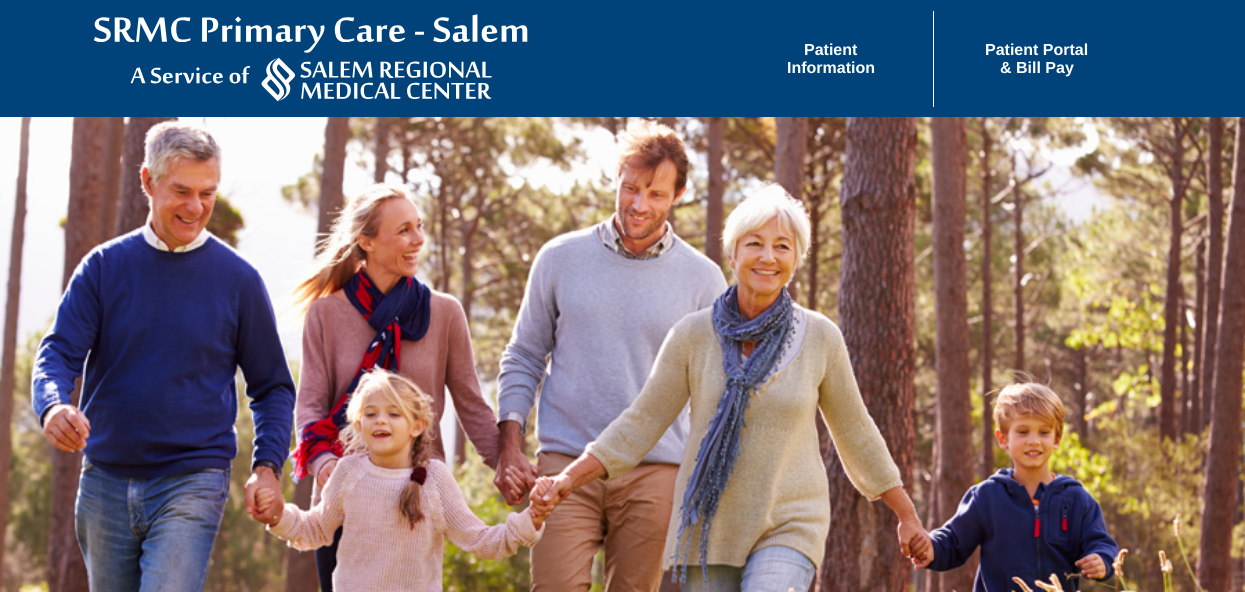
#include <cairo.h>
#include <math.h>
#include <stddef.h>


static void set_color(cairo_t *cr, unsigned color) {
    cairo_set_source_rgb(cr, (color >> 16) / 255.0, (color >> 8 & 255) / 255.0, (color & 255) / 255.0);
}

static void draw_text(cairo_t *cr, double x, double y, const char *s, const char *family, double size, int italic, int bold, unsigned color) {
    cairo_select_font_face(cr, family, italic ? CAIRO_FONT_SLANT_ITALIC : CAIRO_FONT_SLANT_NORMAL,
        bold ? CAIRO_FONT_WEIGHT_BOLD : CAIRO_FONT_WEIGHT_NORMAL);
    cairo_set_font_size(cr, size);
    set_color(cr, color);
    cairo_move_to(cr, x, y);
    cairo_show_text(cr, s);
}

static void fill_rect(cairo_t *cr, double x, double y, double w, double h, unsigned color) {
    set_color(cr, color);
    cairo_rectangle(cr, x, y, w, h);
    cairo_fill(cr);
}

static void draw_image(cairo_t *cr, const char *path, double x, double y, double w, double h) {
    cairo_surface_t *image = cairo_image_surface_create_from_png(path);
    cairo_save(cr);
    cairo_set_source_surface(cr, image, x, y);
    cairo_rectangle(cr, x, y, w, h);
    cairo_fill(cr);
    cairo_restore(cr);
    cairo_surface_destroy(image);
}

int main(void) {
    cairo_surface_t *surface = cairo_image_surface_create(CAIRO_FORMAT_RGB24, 1245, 592);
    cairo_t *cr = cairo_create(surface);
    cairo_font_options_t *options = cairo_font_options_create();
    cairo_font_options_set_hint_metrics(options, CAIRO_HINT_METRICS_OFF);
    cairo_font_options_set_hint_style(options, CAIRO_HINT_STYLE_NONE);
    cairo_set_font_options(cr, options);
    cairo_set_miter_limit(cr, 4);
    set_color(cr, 0xFFFFFF);
    cairo_paint(cr);
    fill_rect(cr, 0, 0, 1245, 117, 0x00427A);
    draw_image(cr, "assets/img1.png", 94, 14, 434, 88);
    fill_rect(cr, 933, 11, 1, 96, 0xFFFFFF);
    draw_text(cr, 804, 55, "Patient", "Liberation Sans", 16, 0, 1, 0xFFFFFF);
    draw_text(cr, 787, 73, "Information", "Liberation Sans", 16, 0, 1, 0xFFFFFF);
    draw_text(cr, 985, 55, "Patient Portal", "Liberation Sans", 16, 0, 1, 0xFFFFFF);
    draw_text(cr, 1000, 73, "& Bill Pay", "Liberation Sans", 16, 0, 1, 0xFFFFFF);
    draw_image(cr, "assets/img2.png", 0, 117, 1245, 475);
    cairo_surface_write_to_png(surface, "output.png");
    cairo_font_options_destroy(options);
    cairo_destroy(cr);
    cairo_surface_destroy(surface);
    return 0;
}
